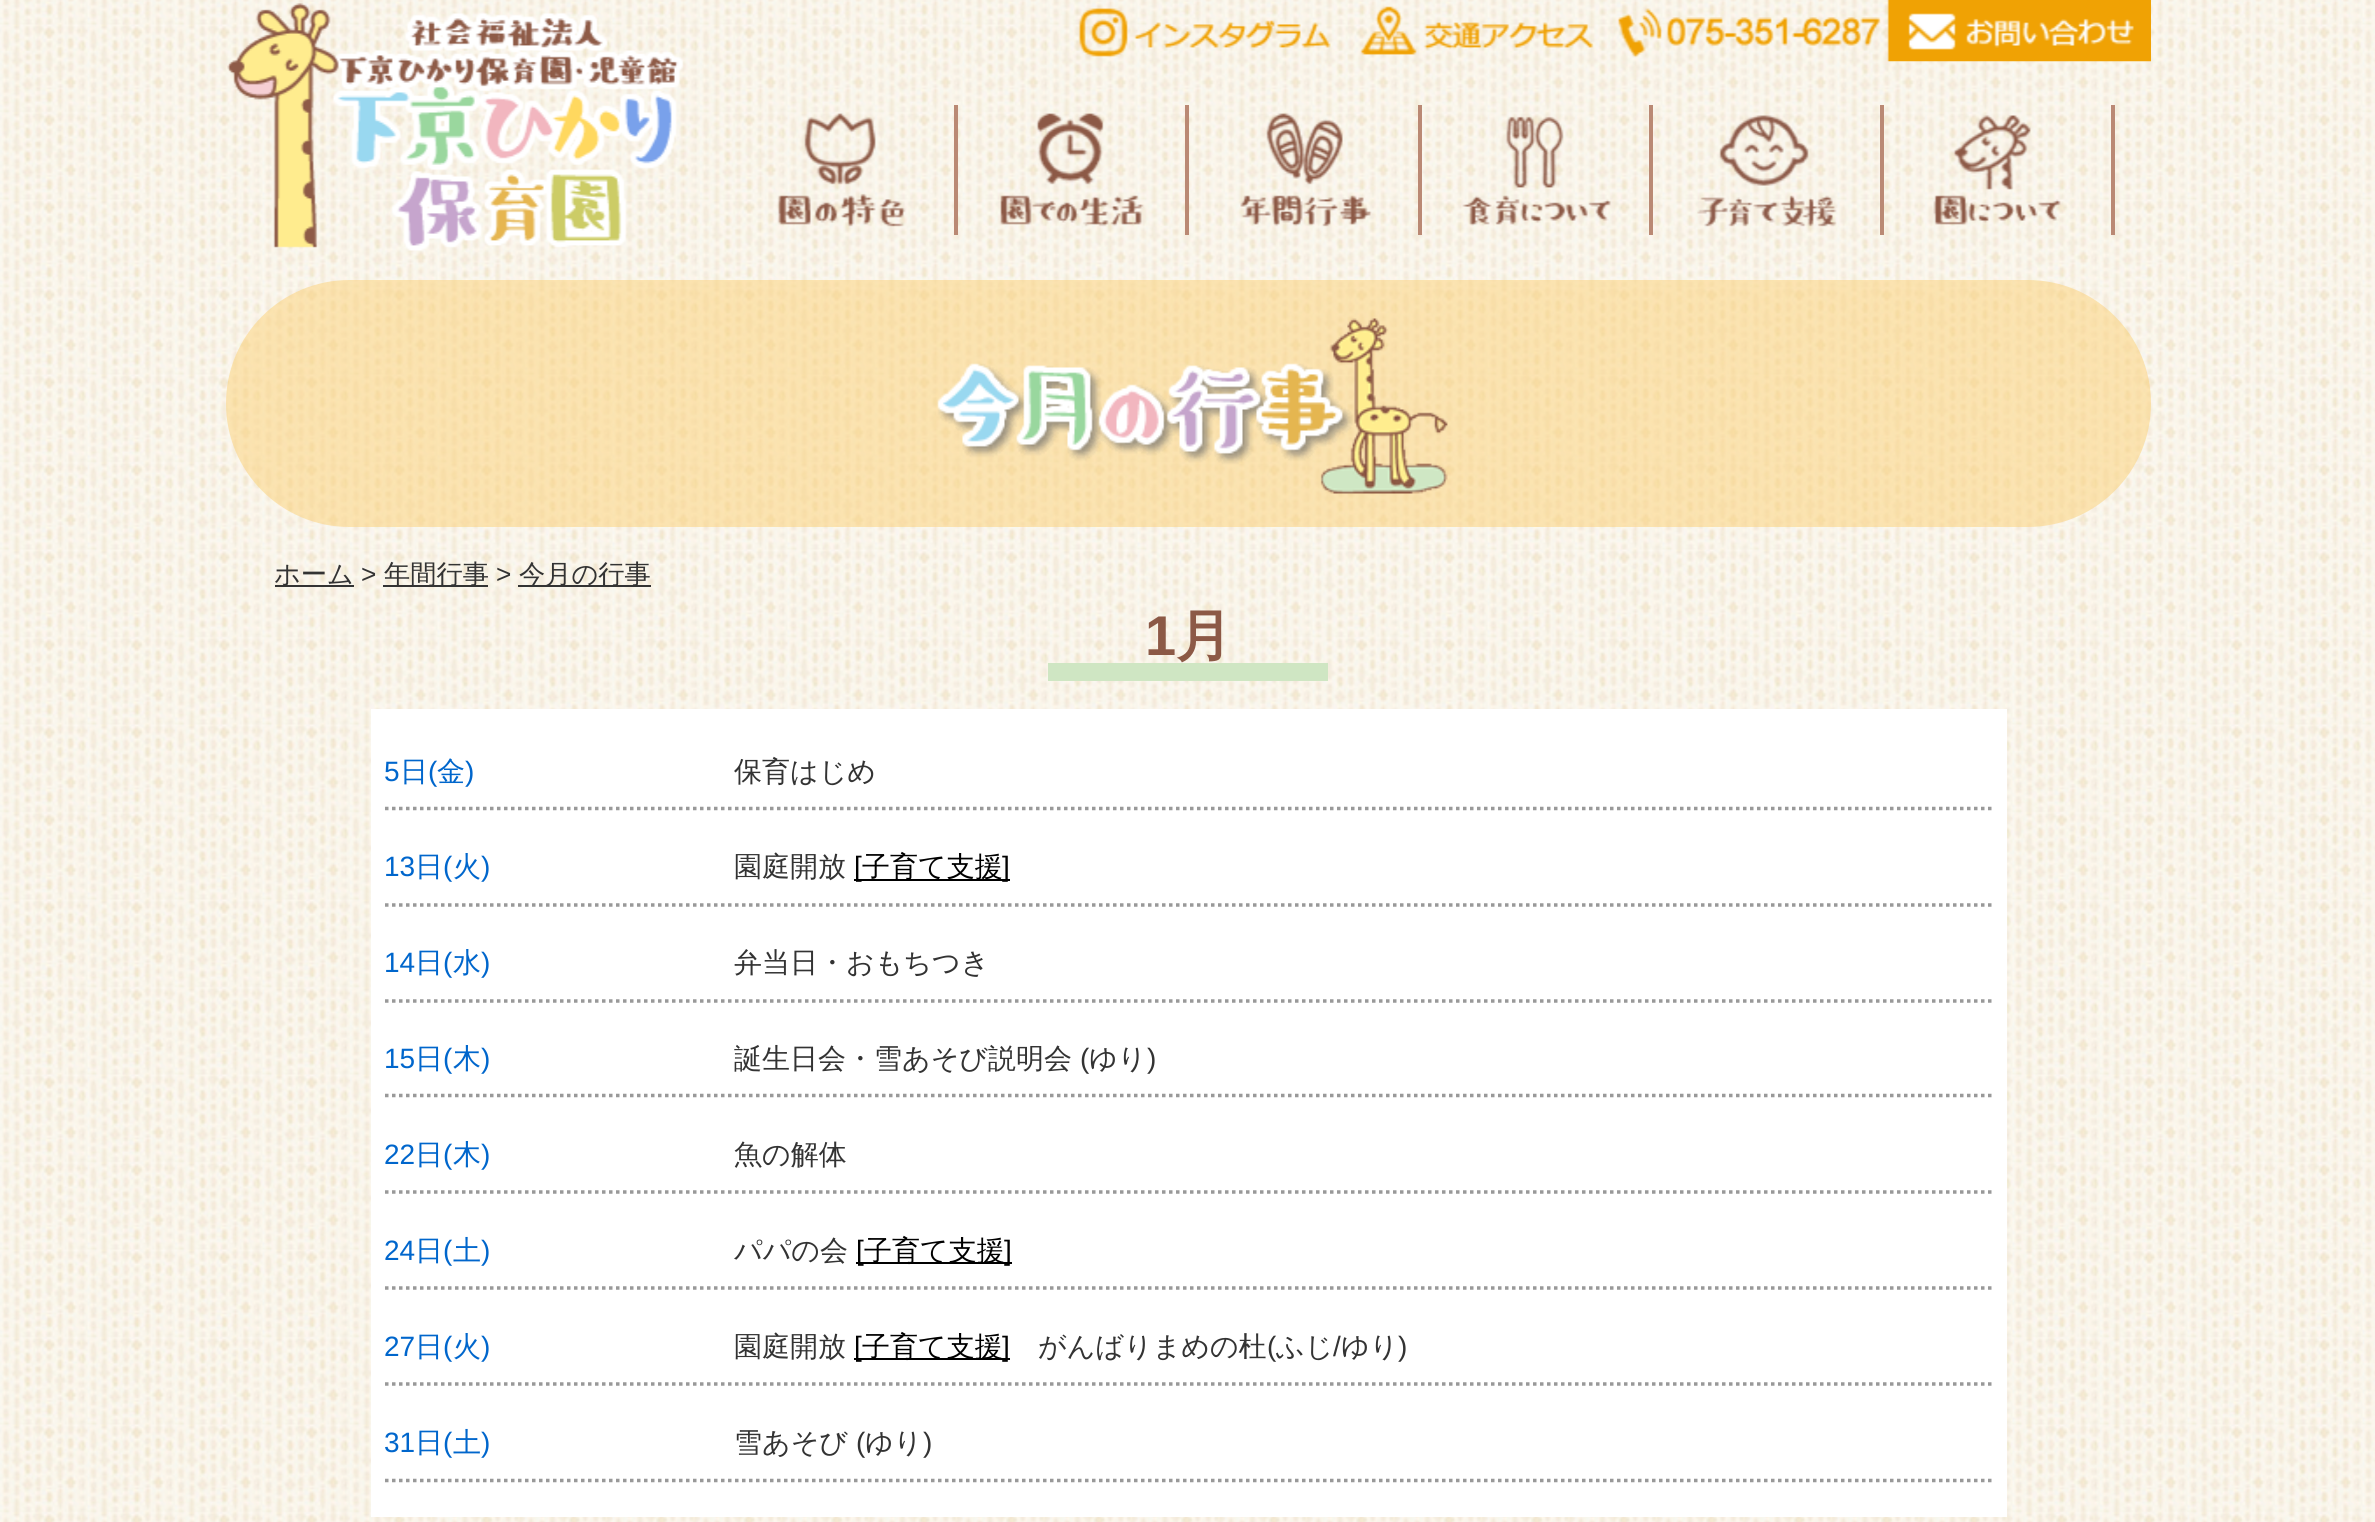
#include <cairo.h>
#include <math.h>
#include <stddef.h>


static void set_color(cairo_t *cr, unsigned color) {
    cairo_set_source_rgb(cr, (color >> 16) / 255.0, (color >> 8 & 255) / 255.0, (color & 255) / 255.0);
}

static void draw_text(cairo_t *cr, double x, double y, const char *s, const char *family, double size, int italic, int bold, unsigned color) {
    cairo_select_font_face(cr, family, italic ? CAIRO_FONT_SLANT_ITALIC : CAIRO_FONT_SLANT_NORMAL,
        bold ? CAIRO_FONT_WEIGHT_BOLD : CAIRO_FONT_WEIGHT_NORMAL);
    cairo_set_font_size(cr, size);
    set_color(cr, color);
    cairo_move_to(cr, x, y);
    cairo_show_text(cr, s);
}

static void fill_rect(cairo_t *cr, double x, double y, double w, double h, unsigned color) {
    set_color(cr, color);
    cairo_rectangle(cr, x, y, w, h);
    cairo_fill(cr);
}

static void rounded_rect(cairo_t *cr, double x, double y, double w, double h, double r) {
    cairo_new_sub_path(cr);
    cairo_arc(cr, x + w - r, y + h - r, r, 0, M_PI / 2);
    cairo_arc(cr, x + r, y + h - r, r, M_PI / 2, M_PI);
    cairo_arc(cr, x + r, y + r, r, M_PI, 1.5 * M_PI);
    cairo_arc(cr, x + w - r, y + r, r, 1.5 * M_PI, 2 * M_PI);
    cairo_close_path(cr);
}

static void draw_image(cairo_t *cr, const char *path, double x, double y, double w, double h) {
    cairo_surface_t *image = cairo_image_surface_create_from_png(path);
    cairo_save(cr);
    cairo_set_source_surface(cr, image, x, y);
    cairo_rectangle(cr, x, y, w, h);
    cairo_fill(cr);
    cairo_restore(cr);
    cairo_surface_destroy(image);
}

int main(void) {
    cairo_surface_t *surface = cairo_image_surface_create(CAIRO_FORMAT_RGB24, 2375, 1522);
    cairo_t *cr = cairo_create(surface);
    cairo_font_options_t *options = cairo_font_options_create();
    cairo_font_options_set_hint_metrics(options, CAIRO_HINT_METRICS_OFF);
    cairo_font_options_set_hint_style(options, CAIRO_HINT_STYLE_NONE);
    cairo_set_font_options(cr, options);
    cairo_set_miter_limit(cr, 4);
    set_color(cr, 0xFFFFFF);
    cairo_paint(cr);
    draw_image(cr, "assets/img1.png", 0, 0, 2375, 1522);
    draw_image(cr, "assets/img2.png", 227, 3, 457, 248);
    draw_image(cr, "assets/img3.png", 1078, 8, 253, 49);
    draw_image(cr, "assets/img4.png", 1360, 6, 234, 49);
    draw_image(cr, "assets/img5.png", 1617, 8, 264, 49);
    draw_image(cr, "assets/img6.png", 1887, 0, 264, 62);
    fill_rect(cr, 954, 105, 4, 130, 0xBA8974);
    draw_image(cr, "assets/img7.png", 777, 113, 129, 114);
    fill_rect(cr, 1185, 105, 4, 130, 0xBA8974);
    draw_image(cr, "assets/img8.png", 1000, 113, 144, 114);
    fill_rect(cr, 1418, 105, 4, 130, 0xBA8974);
    draw_image(cr, "assets/img9.png", 1240, 113, 132, 114);
    fill_rect(cr, 1649, 105, 4, 130, 0xBA8974);
    draw_image(cr, "assets/img10.png", 1462, 116, 149, 110);
    fill_rect(cr, 1880, 105, 4, 130, 0xBA8974);
    draw_image(cr, "assets/img11.png", 1697, 115, 140, 112);
    fill_rect(cr, 2111, 105, 4, 130, 0xBA8974);
    draw_image(cr, "assets/img12.png", 1933, 115, 128, 110);
    cairo_set_source_rgba(cr, 0.992, 0.816, 0.459, 0.5);
    rounded_rect(cr, 226, 280, 1925, 247, 123.5);
    cairo_fill(cr);
    draw_image(cr, "assets/img13.png", 937, 318, 511, 176);
    fill_rect(cr, 275, 585, 79, 2, 0x333333);
    draw_text(cr, 274, 583, "ホーム", "WenQuanYi Zen Hei Medium", 26.25, 0, 0, 0x333333);
    draw_text(cr, 361, 583, ">", "Liberation Sans", 26.25, 0, 0, 0x333333);
    fill_rect(cr, 383, 585, 105, 2, 0x333333);
    draw_text(cr, 384, 583, "年間行事", "WenQuanYi Zen Hei Medium", 26.25, 0, 0, 0x333333);
    draw_text(cr, 496, 583, ">", "Liberation Sans", 26.25, 0, 0, 0x333333);
    fill_rect(cr, 518, 585, 133, 2, 0x333333);
    draw_text(cr, 519, 583, "今月の行事", "WenQuanYi Zen Hei Medium", 26.25, 0, 0, 0x333333);
    fill_rect(cr, 1048, 663, 280, 18, 0xCFE6C3);
    draw_text(cr, 1145, 655, "1", "Liberation Sans", 56, 0, 1, 0x8C5946);
    draw_text(cr, 1176, 655, "月", "WenQuanYi Zen Hei", 56, 0, 1, 0x8C5946);
    fill_rect(cr, 371, 709, 1636, 808, 0xFFFFFF);
    cairo_new_path(cr);
    cairo_move_to(cr, 385, 808.5);
    cairo_line_to(cr, 1993, 808.5);
    set_color(cr, 0x999999);
    cairo_set_line_width(cr, 3.5);
    cairo_set_dash(cr, (double[]){3.5, 3.5}, 2, 0);
    cairo_stroke(cr);
    draw_text(cr, 384, 781, "5", "Liberation Sans", 28, 0, 0, 0x0066CC);
    draw_text(cr, 400, 781, "日", "WenQuanYi Zen Hei Medium", 28, 0, 0, 0x0066CC);
    draw_text(cr, 428, 781, "(", "Liberation Sans", 28, 0, 0, 0x0066CC);
    draw_text(cr, 437, 781, "金", "WenQuanYi Zen Hei Medium", 28, 0, 0, 0x0066CC);
    draw_text(cr, 465, 781, ")", "Liberation Sans", 28, 0, 0, 0x0066CC);
    draw_text(cr, 734, 781, "保育はじめ", "WenQuanYi Zen Hei Medium", 28, 0, 0, 0x333333);
    cairo_new_path(cr);
    cairo_move_to(cr, 385, 905);
    cairo_line_to(cr, 1993, 905);
    set_color(cr, 0x999999);
    cairo_stroke(cr);
    draw_text(cr, 384, 876, "13", "Liberation Sans", 28, 0, 0, 0x0066CC);
    draw_text(cr, 415, 876, "日", "WenQuanYi Zen Hei Medium", 28, 0, 0, 0x0066CC);
    draw_text(cr, 443, 876, "(", "Liberation Sans", 28, 0, 0, 0x0066CC);
    draw_text(cr, 453, 876, "火", "WenQuanYi Zen Hei Medium", 28, 0, 0, 0x0066CC);
    draw_text(cr, 481, 876, ")", "Liberation Sans", 28, 0, 0, 0x0066CC);
    draw_text(cr, 734, 876, "園庭開放", "WenQuanYi Zen Hei Medium", 28, 0, 0, 0x333333);
    fill_rect(cr, 854, 879, 156, 2, 0x000000);
    draw_text(cr, 854, 876, "[", "Liberation Sans", 28, 0, 0, 0x000000);
    draw_text(cr, 862, 876, "子育て支援", "WenQuanYi Zen Hei Medium", 28, 0, 0, 0x000000);
    draw_text(cr, 1002, 876, "]", "Liberation Sans", 28, 0, 0, 0x000000);
    cairo_new_path(cr);
    cairo_move_to(cr, 385, 1001);
    cairo_line_to(cr, 1993, 1001);
    set_color(cr, 0x999999);
    cairo_stroke(cr);
    draw_text(cr, 384, 972, "14", "Liberation Sans", 28, 0, 0, 0x0066CC);
    draw_text(cr, 415, 972, "日", "WenQuanYi Zen Hei Medium", 28, 0, 0, 0x0066CC);
    draw_text(cr, 443, 972, "(", "Liberation Sans", 28, 0, 0, 0x0066CC);
    draw_text(cr, 453, 972, "水", "WenQuanYi Zen Hei Medium", 28, 0, 0, 0x0066CC);
    draw_text(cr, 481, 972, ")", "Liberation Sans", 28, 0, 0, 0x0066CC);
    draw_text(cr, 734, 972, "弁当日・おもちつき", "WenQuanYi Zen Hei Medium", 28, 0, 0, 0x333333);
    cairo_new_path(cr);
    cairo_move_to(cr, 385, 1095.5);
    cairo_line_to(cr, 1993, 1095.5);
    set_color(cr, 0x999999);
    cairo_stroke(cr);
    draw_text(cr, 384, 1068, "15", "Liberation Sans", 28, 0, 0, 0x0066CC);
    draw_text(cr, 415, 1068, "日", "WenQuanYi Zen Hei Medium", 28, 0, 0, 0x0066CC);
    draw_text(cr, 443, 1068, "(", "Liberation Sans", 28, 0, 0, 0x0066CC);
    draw_text(cr, 453, 1068, "木", "WenQuanYi Zen Hei Medium", 28, 0, 0, 0x0066CC);
    draw_text(cr, 481, 1068, ")", "Liberation Sans", 28, 0, 0, 0x0066CC);
    draw_text(cr, 734, 1068, "誕生日会・雪あそび説明会", "WenQuanYi Zen Hei Medium", 28, 0, 0, 0x333333);
    draw_text(cr, 1080, 1068, "(", "Liberation Sans", 28, 0, 0, 0x333333);
    draw_text(cr, 1089, 1068, "ゆり", "WenQuanYi Zen Hei Medium", 28, 0, 0, 0x333333);
    draw_text(cr, 1147, 1068, ")", "Liberation Sans", 28, 0, 0, 0x333333);
    cairo_new_path(cr);
    cairo_move_to(cr, 385, 1192);
    cairo_line_to(cr, 1993, 1192);
    set_color(cr, 0x999999);
    cairo_stroke(cr);
    draw_text(cr, 384, 1164, "22", "Liberation Sans", 28, 0, 0, 0x0066CC);
    draw_text(cr, 415, 1164, "日", "WenQuanYi Zen Hei Medium", 28, 0, 0, 0x0066CC);
    draw_text(cr, 443, 1164, "(", "Liberation Sans", 28, 0, 0, 0x0066CC);
    draw_text(cr, 453, 1164, "木", "WenQuanYi Zen Hei Medium", 28, 0, 0, 0x0066CC);
    draw_text(cr, 481, 1164, ")", "Liberation Sans", 28, 0, 0, 0x0066CC);
    draw_text(cr, 734, 1164, "魚の解体", "WenQuanYi Zen Hei Medium", 28, 0, 0, 0x333333);
    cairo_new_path(cr);
    cairo_move_to(cr, 385, 1288);
    cairo_line_to(cr, 1993, 1288);
    set_color(cr, 0x999999);
    cairo_stroke(cr);
    draw_text(cr, 384, 1260, "24", "Liberation Sans", 28, 0, 0, 0x0066CC);
    draw_text(cr, 415, 1260, "日", "WenQuanYi Zen Hei Medium", 28, 0, 0, 0x0066CC);
    draw_text(cr, 443, 1260, "(", "Liberation Sans", 28, 0, 0, 0x0066CC);
    draw_text(cr, 453, 1260, "土", "WenQuanYi Zen Hei Medium", 28, 0, 0, 0x0066CC);
    draw_text(cr, 481, 1260, ")", "Liberation Sans", 28, 0, 0, 0x0066CC);
    draw_text(cr, 734, 1260, "パパの会", "WenQuanYi Zen Hei Medium", 28, 0, 0, 0x333333);
    fill_rect(cr, 856, 1262, 156, 2, 0x000000);
    draw_text(cr, 856, 1260, "[", "Liberation Sans", 28, 0, 0, 0x000000);
    draw_text(cr, 864, 1260, "子育て支援", "WenQuanYi Zen Hei Medium", 28, 0, 0, 0x000000);
    draw_text(cr, 1004, 1260, "]", "Liberation Sans", 28, 0, 0, 0x000000);
    cairo_new_path(cr);
    cairo_move_to(cr, 385, 1384);
    cairo_line_to(cr, 1993, 1384);
    set_color(cr, 0x999999);
    cairo_stroke(cr);
    draw_text(cr, 384, 1356, "27", "Liberation Sans", 28, 0, 0, 0x0066CC);
    draw_text(cr, 415, 1356, "日", "WenQuanYi Zen Hei Medium", 28, 0, 0, 0x0066CC);
    draw_text(cr, 443, 1356, "(", "Liberation Sans", 28, 0, 0, 0x0066CC);
    draw_text(cr, 453, 1356, "火", "WenQuanYi Zen Hei Medium", 28, 0, 0, 0x0066CC);
    draw_text(cr, 481, 1356, ")", "Liberation Sans", 28, 0, 0, 0x0066CC);
    draw_text(cr, 734, 1356, "園庭開放", "WenQuanYi Zen Hei Medium", 28, 0, 0, 0x333333);
    fill_rect(cr, 854, 1358, 156, 2, 0x000000);
    draw_text(cr, 854, 1356, "[", "Liberation Sans", 28, 0, 0, 0x000000);
    draw_text(cr, 862, 1356, "子育て支援", "WenQuanYi Zen Hei Medium", 28, 0, 0, 0x000000);
    draw_text(cr, 1002, 1356, "]", "Liberation Sans", 28, 0, 0, 0x000000);
    draw_text(cr, 1038, 1356, "がんばりまめの杜", "WenQuanYi Zen Hei Medium", 28, 0, 0, 0x333333);
    draw_text(cr, 1267, 1356, "(", "Liberation Sans", 28, 0, 0, 0x333333);
    draw_text(cr, 1276, 1356, "ふじ", "WenQuanYi Zen Hei Medium", 28, 0, 0, 0x333333);
    draw_text(cr, 1333, 1356, "/", "Liberation Sans", 28, 0, 0, 0x333333);
    draw_text(cr, 1341, 1356, "ゆり", "WenQuanYi Zen Hei Medium", 28, 0, 0, 0x333333);
    draw_text(cr, 1398, 1356, ")", "Liberation Sans", 28, 0, 0, 0x333333);
    cairo_new_path(cr);
    cairo_move_to(cr, 385, 1480.5);
    cairo_line_to(cr, 1993, 1480.5);
    set_color(cr, 0x999999);
    cairo_stroke(cr);
    draw_text(cr, 384, 1452, "31", "Liberation Sans", 28, 0, 0, 0x0066CC);
    draw_text(cr, 415, 1452, "日", "WenQuanYi Zen Hei Medium", 28, 0, 0, 0x0066CC);
    draw_text(cr, 443, 1452, "(", "Liberation Sans", 28, 0, 0, 0x0066CC);
    draw_text(cr, 453, 1452, "土", "WenQuanYi Zen Hei Medium", 28, 0, 0, 0x0066CC);
    draw_text(cr, 481, 1452, ")", "Liberation Sans", 28, 0, 0, 0x0066CC);
    draw_text(cr, 734, 1452, "雪あそび", "WenQuanYi Zen Hei Medium", 28, 0, 0, 0x333333);
    draw_text(cr, 856, 1452, "(", "Liberation Sans", 28, 0, 0, 0x333333);
    draw_text(cr, 865, 1452, "ゆり", "WenQuanYi Zen Hei Medium", 28, 0, 0, 0x333333);
    draw_text(cr, 923, 1452, ")", "Liberation Sans", 28, 0, 0, 0x333333);
    cairo_surface_write_to_png(surface, "output.png");
    cairo_font_options_destroy(options);
    cairo_destroy(cr);
    cairo_surface_destroy(surface);
    return 0;
}
